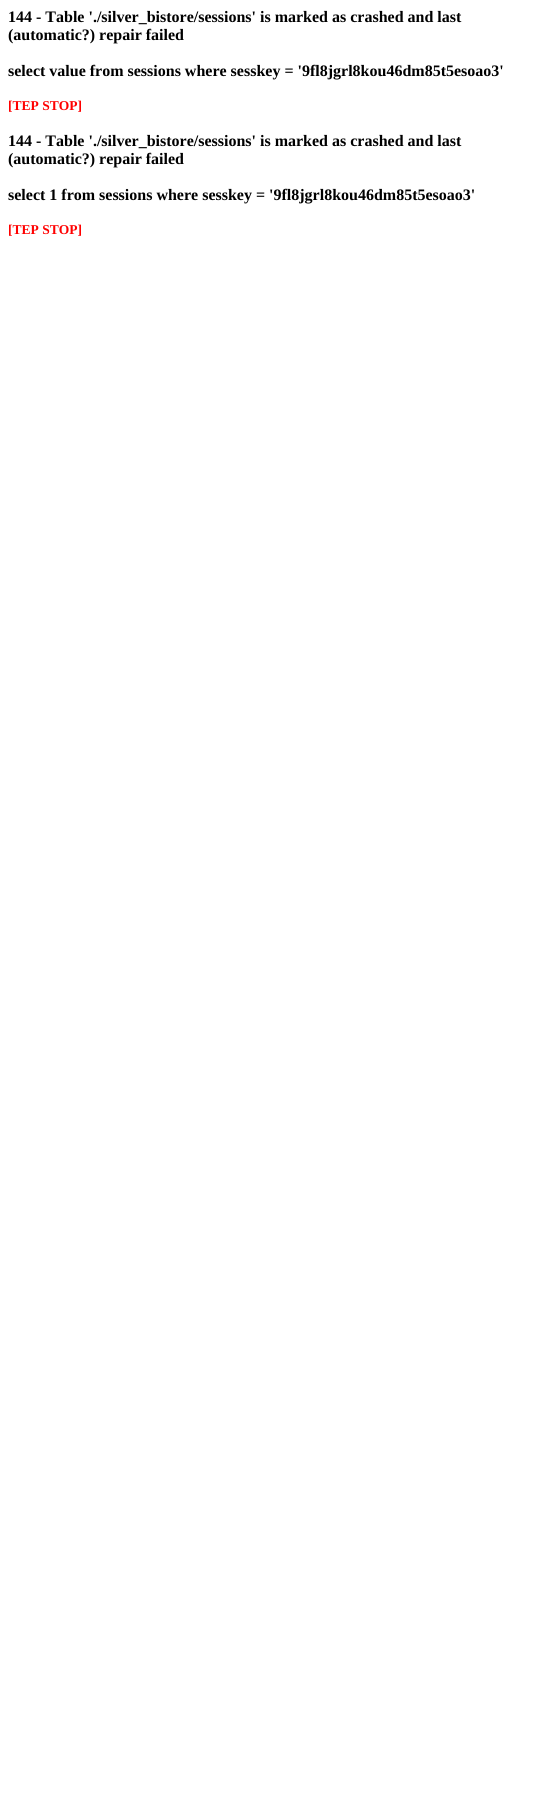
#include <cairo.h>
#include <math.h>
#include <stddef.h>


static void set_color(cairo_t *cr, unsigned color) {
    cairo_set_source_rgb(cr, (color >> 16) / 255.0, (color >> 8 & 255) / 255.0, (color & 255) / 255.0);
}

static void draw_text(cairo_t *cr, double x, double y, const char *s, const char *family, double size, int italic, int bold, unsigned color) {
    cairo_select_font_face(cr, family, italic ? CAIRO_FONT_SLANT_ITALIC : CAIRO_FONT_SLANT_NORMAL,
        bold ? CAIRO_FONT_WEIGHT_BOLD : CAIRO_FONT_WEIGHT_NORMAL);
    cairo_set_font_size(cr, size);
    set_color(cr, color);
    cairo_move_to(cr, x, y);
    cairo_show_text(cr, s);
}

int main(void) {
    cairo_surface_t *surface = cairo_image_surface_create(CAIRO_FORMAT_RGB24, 535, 1802);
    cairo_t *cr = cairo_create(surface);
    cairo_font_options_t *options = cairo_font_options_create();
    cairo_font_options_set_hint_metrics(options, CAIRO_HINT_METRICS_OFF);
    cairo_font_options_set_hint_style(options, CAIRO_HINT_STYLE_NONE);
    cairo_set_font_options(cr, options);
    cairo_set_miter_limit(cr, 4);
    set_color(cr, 0xFFFFFF);
    cairo_paint(cr);
    draw_text(cr, 8, 22, "144 - Table './silver_bistore/sessions' is marked as crashed and last", "Liberation Serif", 16, 0, 1, 0x000000);
    draw_text(cr, 8, 40, "(automatic?) repair failed", "Liberation Serif", 16, 0, 1, 0x000000);
    draw_text(cr, 8, 76, "select value from sessions where sesskey = '9fl8jgrl8kou46dm85t5esoao3'", "Liberation Serif", 16, 0, 1, 0x000000);
    draw_text(cr, 8, 110, "[TEP STOP]", "Liberation Serif", 13.5, 0, 1, 0xFF0000);
    draw_text(cr, 8, 146, "144 - Table './silver_bistore/sessions' is marked as crashed and last", "Liberation Serif", 16, 0, 1, 0x000000);
    draw_text(cr, 8, 164, "(automatic?) repair failed", "Liberation Serif", 16, 0, 1, 0x000000);
    draw_text(cr, 8, 200, "select 1 from sessions where sesskey = '9fl8jgrl8kou46dm85t5esoao3'", "Liberation Serif", 16, 0, 1, 0x000000);
    draw_text(cr, 8, 234, "[TEP STOP]", "Liberation Serif", 13.5, 0, 1, 0xFF0000);
    cairo_surface_write_to_png(surface, "output.png");
    cairo_font_options_destroy(options);
    cairo_destroy(cr);
    cairo_surface_destroy(surface);
    return 0;
}
